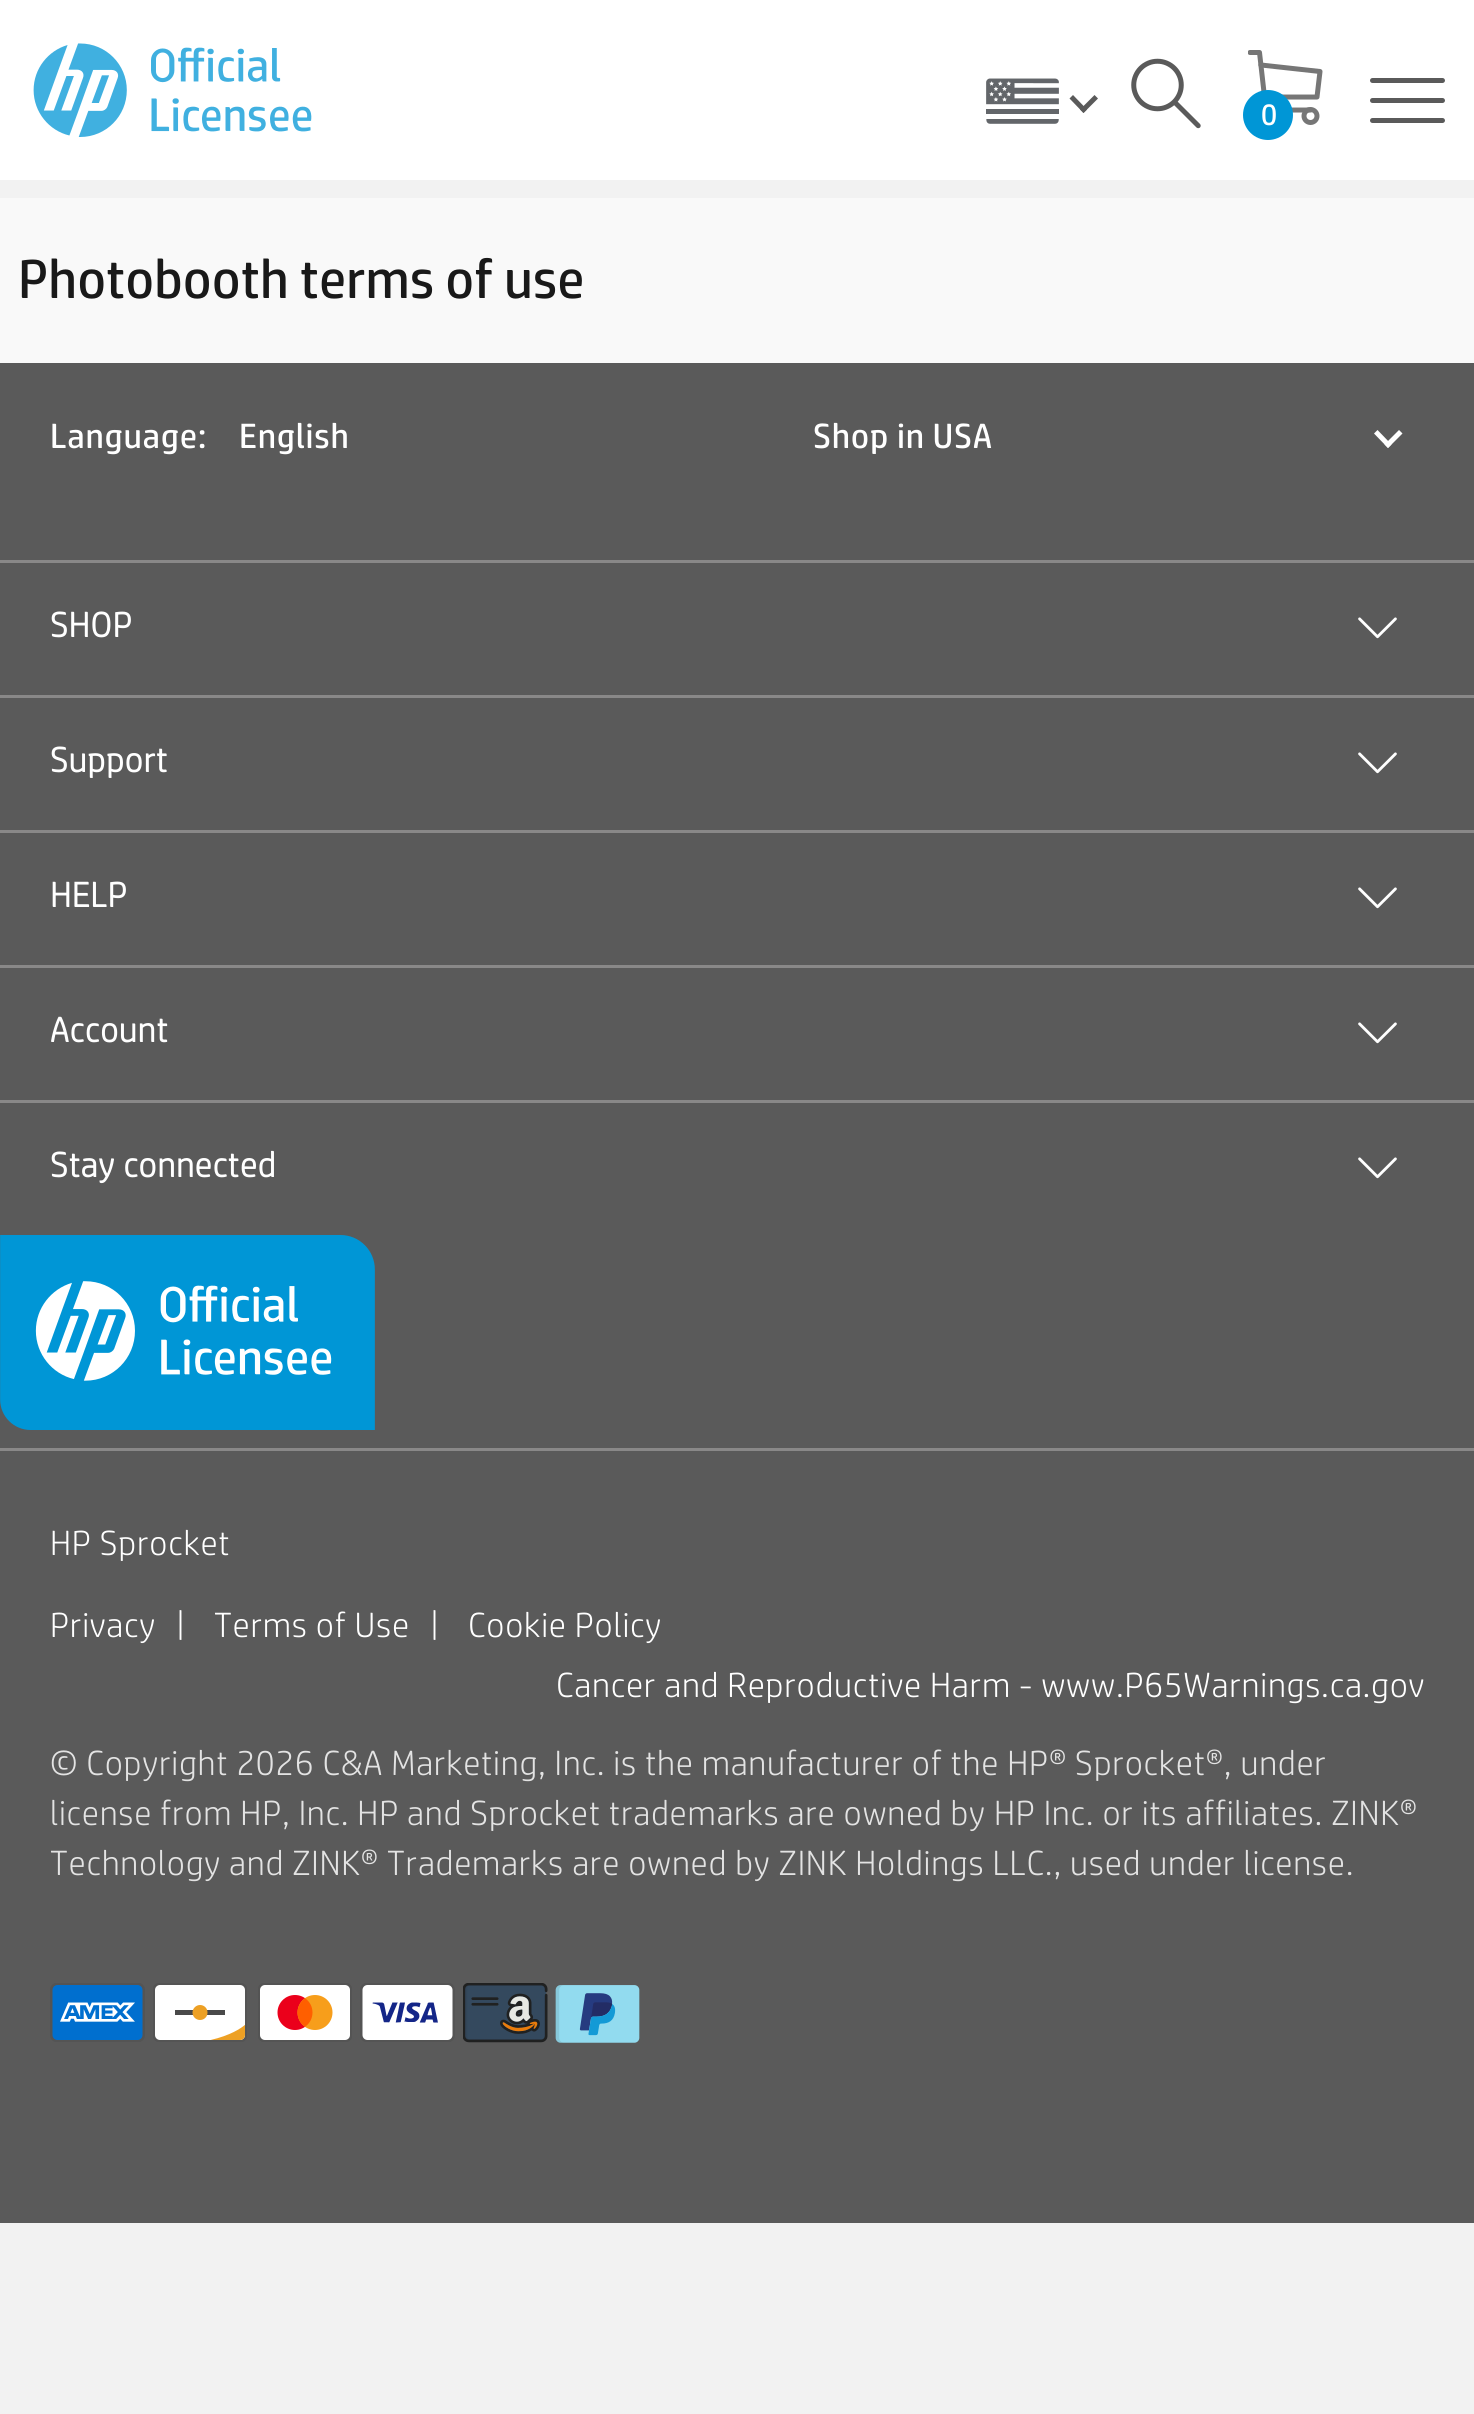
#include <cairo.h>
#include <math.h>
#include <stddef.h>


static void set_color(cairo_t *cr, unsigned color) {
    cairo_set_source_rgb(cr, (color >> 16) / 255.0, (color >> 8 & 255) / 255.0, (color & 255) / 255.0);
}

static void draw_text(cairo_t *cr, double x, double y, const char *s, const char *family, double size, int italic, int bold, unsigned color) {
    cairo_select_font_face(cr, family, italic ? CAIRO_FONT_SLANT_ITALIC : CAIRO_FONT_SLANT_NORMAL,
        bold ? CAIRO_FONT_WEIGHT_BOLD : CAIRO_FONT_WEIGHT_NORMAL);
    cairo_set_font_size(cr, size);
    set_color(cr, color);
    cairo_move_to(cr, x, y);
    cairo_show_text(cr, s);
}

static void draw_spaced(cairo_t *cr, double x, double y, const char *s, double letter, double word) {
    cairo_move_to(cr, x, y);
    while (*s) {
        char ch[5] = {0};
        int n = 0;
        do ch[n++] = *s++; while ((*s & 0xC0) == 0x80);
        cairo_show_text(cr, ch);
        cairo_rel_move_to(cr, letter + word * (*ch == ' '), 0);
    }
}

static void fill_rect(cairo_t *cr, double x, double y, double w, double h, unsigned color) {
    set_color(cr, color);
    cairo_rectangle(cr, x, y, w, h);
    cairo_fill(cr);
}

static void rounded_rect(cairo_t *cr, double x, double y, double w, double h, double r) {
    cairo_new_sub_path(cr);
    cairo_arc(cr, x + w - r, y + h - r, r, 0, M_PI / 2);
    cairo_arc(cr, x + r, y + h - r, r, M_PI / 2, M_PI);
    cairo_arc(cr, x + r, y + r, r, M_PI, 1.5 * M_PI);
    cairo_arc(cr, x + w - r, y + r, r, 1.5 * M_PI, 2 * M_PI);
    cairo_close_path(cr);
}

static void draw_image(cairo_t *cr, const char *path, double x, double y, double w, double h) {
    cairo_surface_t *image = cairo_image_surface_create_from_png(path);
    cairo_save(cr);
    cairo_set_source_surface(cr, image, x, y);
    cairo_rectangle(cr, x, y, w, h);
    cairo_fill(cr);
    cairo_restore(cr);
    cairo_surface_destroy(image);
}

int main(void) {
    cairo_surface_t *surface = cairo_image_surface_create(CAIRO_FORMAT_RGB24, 1474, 2414);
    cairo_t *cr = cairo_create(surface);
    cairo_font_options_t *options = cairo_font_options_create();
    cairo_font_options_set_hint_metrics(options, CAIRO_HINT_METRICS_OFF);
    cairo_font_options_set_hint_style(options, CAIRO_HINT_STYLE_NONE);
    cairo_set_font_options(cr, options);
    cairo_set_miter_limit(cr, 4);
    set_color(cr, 0xF2F2F2);
    cairo_paint(cr);
    fill_rect(cr, 0, 0, 1474, 180, 0xFFFFFF);
    draw_image(cr, "assets/img1.png", 33, 43, 279, 94);
    draw_image(cr, "assets/img2.png", 986, 78, 73, 46);
    set_color(cr, 0x5A5A5A);
    cairo_new_path(cr);
    cairo_move_to(cr, 1094.5, 95);
    cairo_line_to(cr, 1098, 98.5);
    cairo_line_to(cr, 1083.5, 113);
    cairo_line_to(cr, 1080, 109.5);
    cairo_close_path(cr);
    cairo_fill(cr);
    cairo_new_path(cr);
    cairo_move_to(cr, 1073, 95);
    cairo_line_to(cr, 1087, 109.5);
    cairo_line_to(cr, 1083.5, 113);
    cairo_line_to(cr, 1069.5, 98.5);
    cairo_close_path(cr);
    cairo_fill(cr);
    draw_image(cr, "assets/img3.png", 1131, 58, 70, 71);
    cairo_arc(cr, 1310.5, 116, 6.5, 0, 2 * M_PI);
    set_color(cr, 0x767676);
    cairo_set_line_width(cr, 5);
    cairo_stroke(cr);
    cairo_save(cr);
    cairo_rectangle(cr, 1248, 50, 75, 75);
    cairo_clip(cr);
    cairo_new_path(cr);
    cairo_move_to(cr, 1310.5, 110);
    cairo_line_to(cr, 1266, 110);
    cairo_line_to(cr, 1259.5, 52.5);
    cairo_line_to(cr, 1250, 52.5);
    cairo_set_line_cap(cr, CAIRO_LINE_CAP_ROUND);
    cairo_set_line_join(cr, CAIRO_LINE_JOIN_ROUND);
    cairo_stroke(cr);
    cairo_restore(cr);
    cairo_new_path(cr);
    cairo_move_to(cr, 1261, 65);
    cairo_line_to(cr, 1320, 71.5);
    cairo_line_to(cr, 1317, 97);
    cairo_line_to(cr, 1264.5, 97);
    cairo_set_line_cap(cr, CAIRO_LINE_CAP_ROUND);
    cairo_set_line_join(cr, CAIRO_LINE_JOIN_ROUND);
    cairo_stroke(cr);
    set_color(cr, 0x0096D6);
    cairo_arc(cr, 1268, 115, 25, 0, 2 * M_PI);
    cairo_fill(cr);
    cairo_select_font_face(cr, "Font", CAIRO_FONT_SLANT_NORMAL, CAIRO_FONT_WEIGHT_NORMAL);
    cairo_set_font_size(cr, 30);
    set_color(cr, 0xFFFFFF);
    draw_spaced(cr, 1261, 125, "0", 0.75, 0);
    set_color(cr, 0x5A5A5A);
    rounded_rect(cr, 1370, 78, 75, 5, 2.5);
    cairo_fill(cr);
    rounded_rect(cr, 1370, 98, 75, 5, 2.5);
    cairo_fill(cr);
    rounded_rect(cr, 1370, 118, 75, 5, 2.5);
    cairo_fill(cr);
    fill_rect(cr, 0, 198, 1474, 165, 0xF9F9F9);
    draw_text(cr, 18, 298, "Photobooth terms of use", "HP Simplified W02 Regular", 55, 0, 0, 0x191919);
    fill_rect(cr, 0, 363, 1474, 1860, 0x5A5A5A);
    cairo_select_font_face(cr, "Font", CAIRO_FONT_SLANT_NORMAL, CAIRO_FONT_WEIGHT_NORMAL);
    cairo_set_font_size(cr, 35);
    set_color(cr, 0xFFFFFF);
    draw_spaced(cr, 50, 448, "Language:", 0.75, 0);
    draw_spaced(cr, 239, 448, "English", 0.75, 0);
    draw_spaced(cr, 813, 448, "Shop in USA", 0.75, 0);
    cairo_new_path(cr);
    cairo_move_to(cr, 1399, 430);
    cairo_line_to(cr, 1402.5, 433.5);
    cairo_line_to(cr, 1388, 448);
    cairo_line_to(cr, 1384.5, 444.5);
    cairo_close_path(cr);
    cairo_fill(cr);
    cairo_new_path(cr);
    cairo_move_to(cr, 1377.5, 430);
    cairo_line_to(cr, 1391.5, 444.5);
    cairo_line_to(cr, 1388, 448);
    cairo_line_to(cr, 1374, 433.5);
    cairo_close_path(cr);
    cairo_fill(cr);
    fill_rect(cr, 0, 1448, 1474, 3, 0x898888);
    fill_rect(cr, 0, 560, 1474, 3, 0x898888);
    cairo_select_font_face(cr, "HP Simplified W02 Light", CAIRO_FONT_SLANT_NORMAL, CAIRO_FONT_WEIGHT_BOLD);
    set_color(cr, 0xFFFFFF);
    draw_spaced(cr, 50, 637, "SHOP", 0.75, 0);
    draw_image(cr, "assets/img4.png", 1358, 617, 39, 22);
    fill_rect(cr, 0, 695, 1474, 3, 0x898888);
    set_color(cr, 0xFFFFFF);
    draw_spaced(cr, 50, 772, "Support", 0.75, 0);
    draw_image(cr, "assets/img4.png", 1358, 752, 39, 22);
    fill_rect(cr, 0, 830, 1474, 3, 0x898888);
    set_color(cr, 0xFFFFFF);
    draw_spaced(cr, 50, 907, "HELP", 0.75, 0);
    draw_image(cr, "assets/img4.png", 1358, 887, 39, 22);
    fill_rect(cr, 0, 965, 1474, 3, 0x898888);
    set_color(cr, 0xFFFFFF);
    draw_spaced(cr, 50, 1042, "Account", 0.75, 0);
    draw_image(cr, "assets/img4.png", 1358, 1022, 39, 22);
    fill_rect(cr, 0, 1100, 1474, 3, 0x898888);
    set_color(cr, 0xFFFFFF);
    draw_spaced(cr, 50, 1177, "Stay connected", 0.75, 0);
    draw_image(cr, "assets/img4.png", 1358, 1157, 39, 22);
    draw_image(cr, "assets/img5.png", 0, 1235, 375, 195);
    cairo_select_font_face(cr, "HP Simplified W02 Light Light", CAIRO_FONT_SLANT_NORMAL, CAIRO_FONT_WEIGHT_NORMAL);
    draw_spaced(cr, 50, 1555, "HP Sprocket", 0.75, 0);
    draw_spaced(cr, 50, 1637, "Privacy", 0.75, 0);
    draw_spaced(cr, 176, 1637, "|", 0.75, 0);
    draw_spaced(cr, 214, 1637, "Terms of Use", 0.75, 0);
    draw_spaced(cr, 430, 1637, "|", 0.75, 0);
    draw_spaced(cr, 468, 1637, "Cookie Policy", 0.75, 0);
    draw_spaced(cr, 556, 1697, "Cancer and Reproductive Harm - www.P65Warnings.ca.gov", 0.75, 0);
    set_color(cr, 0xE3E3E3);
    draw_spaced(cr, 50, 1775, "© Copyright 2026 C&A Marketing, Inc. is the manufacturer of the HP® Sprocket®, under", 0.75, 0);
    draw_spaced(cr, 50, 1825, "license from HP, Inc. HP and Sprocket trademarks are owned by HP Inc. or its affiliates. ZINK®", 0.75, 0);
    draw_spaced(cr, 50, 1875, "Technology and ZINK® Trademarks are owned by ZINK Holdings LLC., used under license.", 0.75, 0);
    draw_image(cr, "assets/img6.png", 50, 1983, 95, 59);
    draw_image(cr, "assets/img7.png", 153, 1983, 94, 59);
    draw_image(cr, "assets/img8.png", 258, 1983, 94, 59);
    draw_image(cr, "assets/img9.png", 360, 1983, 95, 59);
    draw_image(cr, "assets/img10.png", 463, 1983, 85, 60);
    draw_image(cr, "assets/img11.png", 555, 1985, 85, 58);
    cairo_surface_write_to_png(surface, "output.png");
    cairo_font_options_destroy(options);
    cairo_destroy(cr);
    cairo_surface_destroy(surface);
    return 0;
}
